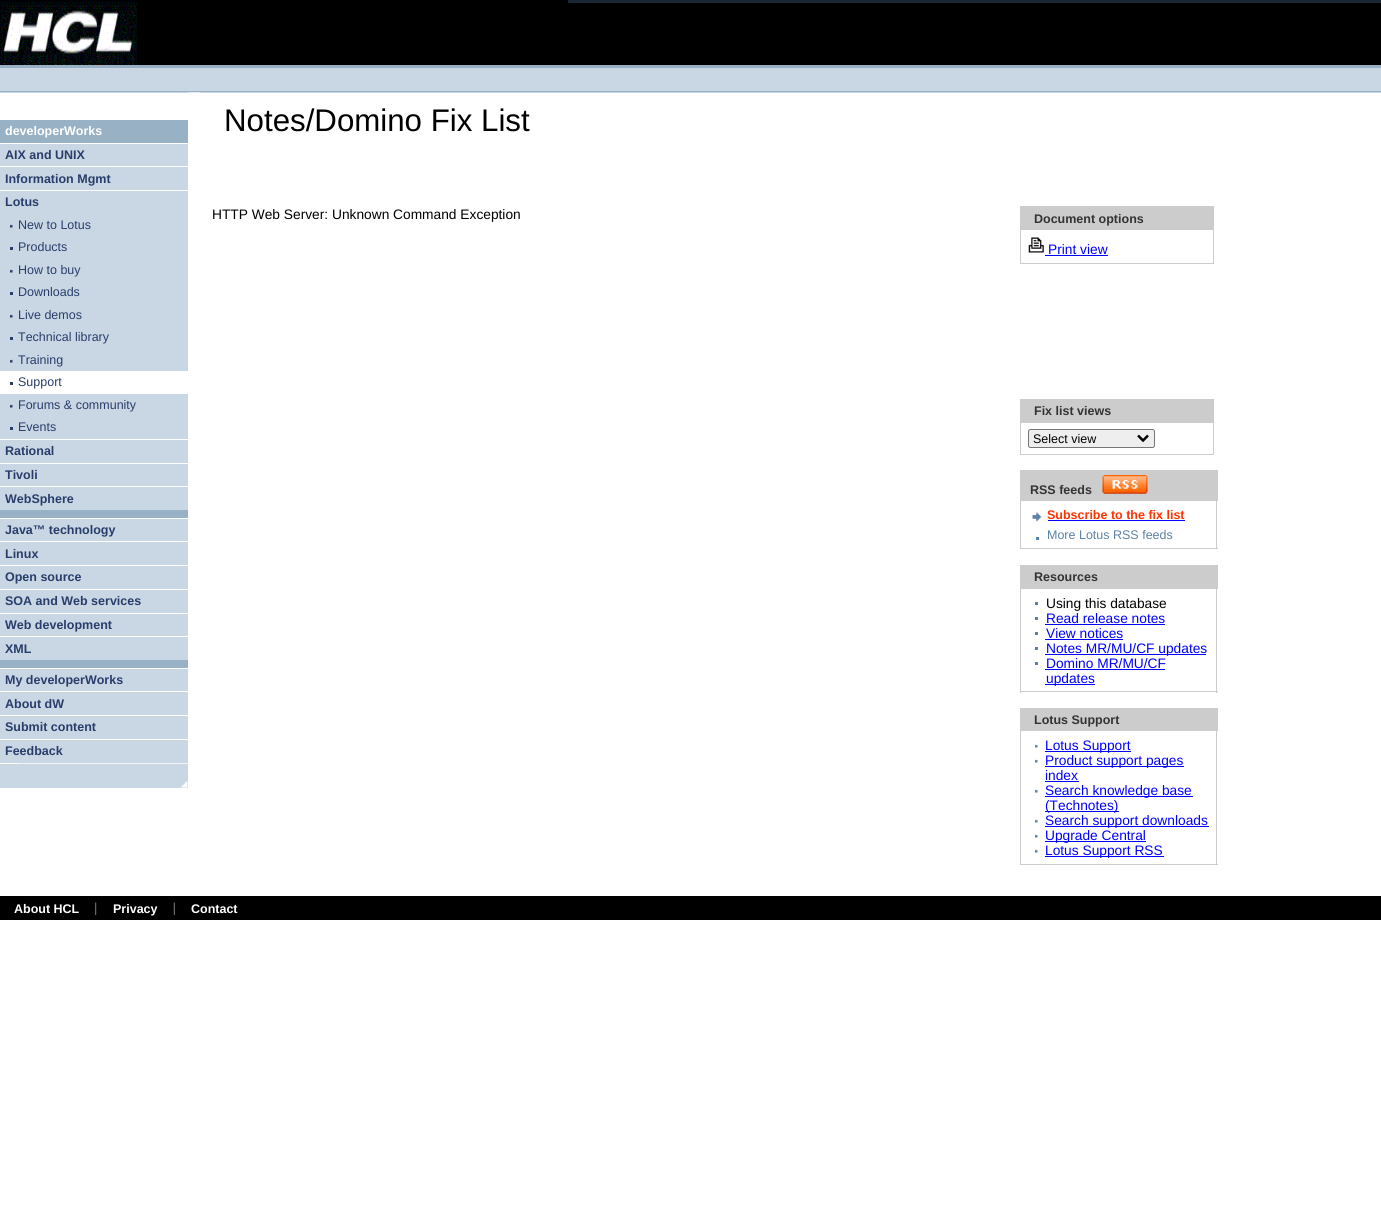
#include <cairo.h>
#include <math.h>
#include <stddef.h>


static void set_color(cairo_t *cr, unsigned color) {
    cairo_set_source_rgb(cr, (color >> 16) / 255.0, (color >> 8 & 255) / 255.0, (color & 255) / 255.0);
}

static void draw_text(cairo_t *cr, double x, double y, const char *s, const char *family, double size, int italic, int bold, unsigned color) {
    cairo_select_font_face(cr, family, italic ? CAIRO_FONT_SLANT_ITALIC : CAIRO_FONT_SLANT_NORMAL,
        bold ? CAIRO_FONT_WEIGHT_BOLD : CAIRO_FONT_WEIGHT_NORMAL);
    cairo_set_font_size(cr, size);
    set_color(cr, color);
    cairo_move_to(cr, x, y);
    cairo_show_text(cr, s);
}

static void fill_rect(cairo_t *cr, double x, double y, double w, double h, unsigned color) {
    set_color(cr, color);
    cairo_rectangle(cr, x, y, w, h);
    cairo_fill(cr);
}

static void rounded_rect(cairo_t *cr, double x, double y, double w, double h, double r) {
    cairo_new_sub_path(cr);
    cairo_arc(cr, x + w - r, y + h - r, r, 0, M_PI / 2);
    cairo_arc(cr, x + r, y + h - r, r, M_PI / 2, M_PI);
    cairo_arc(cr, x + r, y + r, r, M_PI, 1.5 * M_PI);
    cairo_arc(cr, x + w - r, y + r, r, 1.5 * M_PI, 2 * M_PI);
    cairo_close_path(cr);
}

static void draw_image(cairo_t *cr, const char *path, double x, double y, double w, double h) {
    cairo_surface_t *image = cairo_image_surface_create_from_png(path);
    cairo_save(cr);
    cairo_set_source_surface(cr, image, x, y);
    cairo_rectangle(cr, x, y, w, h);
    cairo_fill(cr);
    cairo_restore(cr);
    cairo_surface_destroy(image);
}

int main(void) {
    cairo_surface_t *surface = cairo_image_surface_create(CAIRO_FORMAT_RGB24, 1381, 1226);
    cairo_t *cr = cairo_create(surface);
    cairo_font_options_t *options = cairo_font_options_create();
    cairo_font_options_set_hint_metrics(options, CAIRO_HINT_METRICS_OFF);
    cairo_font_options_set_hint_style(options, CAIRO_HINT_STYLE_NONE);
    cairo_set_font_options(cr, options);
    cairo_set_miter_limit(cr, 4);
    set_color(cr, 0xFFFFFF);
    cairo_paint(cr);
    fill_rect(cr, 0, 0, 569, 65, 0x000000);
    draw_image(cr, "assets/img1.png", 0, 1, 138, 64);
    fill_rect(cr, 569, 3, 812, 62, 0x000000);
    fill_rect(cr, 568, 0, 813, 3, 0x192633);
    fill_rect(cr, 0, 68, 1381, 25, 0xC8D7E3);
    fill_rect(cr, 0, 65, 1381, 3, 0x99AFC4);
    fill_rect(cr, 0, 91, 1381, 1, 0x99AFC4);
    fill_rect(cr, 0, 120, 188, 23, 0x98B1C4);
    draw_text(cr, 5, 135, "developerWorks", "Liberation Sans", 12.5, 0, 1, 0xFFFFFF);
    fill_rect(cr, 0, 144, 188, 22, 0xC8D7E3);
    draw_text(cr, 5, 159, "AIX and UNIX", "Liberation Sans", 12.5, 0, 1, 0x293D6B);
    fill_rect(cr, 0, 167, 188, 23, 0xC8D7E3);
    draw_text(cr, 5, 183, "Information Mgmt", "Liberation Sans", 12.5, 0, 1, 0x293D6B);
    fill_rect(cr, 0, 191, 188, 23, 0xC8D7E3);
    draw_text(cr, 5, 206, "Lotus", "Liberation Sans", 12.5, 0, 1, 0x293D6B);
    fill_rect(cr, 0, 214, 188, 22, 0xC8D7E3);
    draw_image(cr, "assets/img2.png", 10, 224, 3, 4);
    draw_text(cr, 18, 229, "New to Lotus", "Liberation Sans", 12.5, 0, 0, 0x293D6B);
    fill_rect(cr, 0, 236, 188, 23, 0xC8D7E3);
    fill_rect(cr, 10, 247, 3, 3, 0x293D6B);
    draw_text(cr, 18, 251, "Products", "Liberation Sans", 12.5, 0, 0, 0x293D6B);
    fill_rect(cr, 0, 259, 188, 22, 0xC8D7E3);
    draw_image(cr, "assets/img2.png", 10, 269, 3, 4);
    draw_text(cr, 18, 274, "How to buy", "Liberation Sans", 12.5, 0, 0, 0x293D6B);
    fill_rect(cr, 0, 281, 188, 23, 0xC8D7E3);
    fill_rect(cr, 10, 292, 3, 3, 0x293D6B);
    draw_text(cr, 18, 296, "Downloads", "Liberation Sans", 12.5, 0, 0, 0x293D6B);
    fill_rect(cr, 0, 304, 188, 22, 0xC8D7E3);
    draw_image(cr, "assets/img2.png", 10, 314, 3, 4);
    draw_text(cr, 18, 319, "Live demos", "Liberation Sans", 12.5, 0, 0, 0x293D6B);
    fill_rect(cr, 0, 326, 188, 23, 0xC8D7E3);
    fill_rect(cr, 10, 337, 3, 3, 0x293D6B);
    draw_text(cr, 18, 341, "Technical library", "Liberation Sans", 12.5, 0, 0, 0x293D6B);
    fill_rect(cr, 0, 349, 188, 22, 0xC8D7E3);
    draw_image(cr, "assets/img2.png", 10, 359, 3, 4);
    draw_text(cr, 18, 364, "Training", "Liberation Sans", 12.5, 0, 0, 0x293D6B);
    fill_rect(cr, 10, 382, 3, 3, 0x293D6B);
    draw_text(cr, 18, 386, "Support", "Liberation Sans", 12.5, 0, 0, 0x293D6B);
    fill_rect(cr, 0, 394, 188, 22, 0xC8D7E3);
    draw_image(cr, "assets/img2.png", 10, 404, 3, 4);
    draw_text(cr, 18, 409, "Forums & community", "Liberation Sans", 12.5, 0, 0, 0x293D6B);
    fill_rect(cr, 0, 416, 188, 23, 0xC8D7E3);
    fill_rect(cr, 10, 427, 3, 3, 0x293D6B);
    draw_text(cr, 18, 431, "Events", "Liberation Sans", 12.5, 0, 0, 0x293D6B);
    fill_rect(cr, 0, 440, 188, 23, 0xC8D7E3);
    draw_text(cr, 5, 455, "Rational", "Liberation Sans", 12.5, 0, 1, 0x293D6B);
    fill_rect(cr, 0, 464, 188, 22, 0xC8D7E3);
    draw_text(cr, 5, 479, "Tivoli", "Liberation Sans", 12.5, 0, 1, 0x293D6B);
    fill_rect(cr, 0, 487, 188, 23, 0xC8D7E3);
    draw_text(cr, 5, 503, "WebSphere", "Liberation Sans", 12.5, 0, 1, 0x293D6B);
    fill_rect(cr, 0, 510, 188, 8, 0x98B1C4);
    fill_rect(cr, 0, 519, 188, 22, 0xC8D7E3);
    draw_text(cr, 5, 534, "Java™ technology", "Liberation Sans", 12.5, 0, 1, 0x293D6B);
    fill_rect(cr, 0, 542, 188, 23, 0xC8D7E3);
    draw_text(cr, 5, 558, "Linux", "Liberation Sans", 12.5, 0, 1, 0x293D6B);
    fill_rect(cr, 0, 566, 188, 23, 0xC8D7E3);
    draw_text(cr, 5, 581, "Open source", "Liberation Sans", 12.5, 0, 1, 0x293D6B);
    fill_rect(cr, 0, 590, 188, 23, 0xC8D7E3);
    draw_text(cr, 5, 605, "SOA and Web services", "Liberation Sans", 12.5, 0, 1, 0x293D6B);
    fill_rect(cr, 0, 614, 188, 22, 0xC8D7E3);
    draw_text(cr, 5, 629, "Web development", "Liberation Sans", 12.5, 0, 1, 0x293D6B);
    fill_rect(cr, 0, 637, 188, 23, 0xC8D7E3);
    draw_text(cr, 5, 653, "XML", "Liberation Sans", 12.5, 0, 1, 0x293D6B);
    fill_rect(cr, 0, 660, 188, 8, 0x98B1C4);
    fill_rect(cr, 0, 669, 188, 22, 0xC8D7E3);
    draw_text(cr, 5, 684, "My developerWorks", "Liberation Sans", 12.5, 0, 1, 0x293D6B);
    fill_rect(cr, 0, 692, 188, 23, 0xC8D7E3);
    draw_text(cr, 5, 708, "About dW", "Liberation Sans", 12.5, 0, 1, 0x293D6B);
    fill_rect(cr, 0, 716, 188, 23, 0xC8D7E3);
    draw_text(cr, 5, 731, "Submit content", "Liberation Sans", 12.5, 0, 1, 0x293D6B);
    fill_rect(cr, 0, 740, 188, 23, 0xC8D7E3);
    draw_text(cr, 5, 755, "Feedback", "Liberation Sans", 12.5, 0, 1, 0x293D6B);
    fill_rect(cr, 0, 764, 188, 24, 0xC8D7E3);
    draw_image(cr, "assets/img3.png", 17, 763, 171, 25);
    draw_image(cr, "assets/img4.png", 187, 92, 13, 1);
    draw_text(cr, 224, 131, "Notes/Domino Fix List", "Liberation Sans", 31.25, 0, 0, 0x000000);
    draw_text(cr, 212, 219, "HTTP Web Server: Unknown Command Exception", "Liberation Sans", 13.75, 0, 0, 0x000000);
    fill_rect(cr, 1020, 206, 194, 24, 0xCCCCCC);
    draw_text(cr, 1034, 223, "Document options", "Liberation Sans", 12.5, 0, 1, 0x333333);
    fill_rect(cr, 1213, 230, 1, 34, 0xCCCCCC);
    fill_rect(cr, 1020, 263, 194, 1, 0xCCCCCC);
    fill_rect(cr, 1020, 230, 1, 34, 0xCCCCCC);
    draw_image(cr, "assets/img5.png", 1028, 237, 16, 16);
    draw_text(cr, 1048, 254, "Print view", "Liberation Sans", 13.75, 0, 0, 0x0000FF);
    fill_rect(cr, 1045, 255, 63, 1, 0x0000FF);
    fill_rect(cr, 1020, 399, 194, 24, 0xCCCCCC);
    draw_text(cr, 1034, 415, "Fix list views", "Liberation Sans", 12.5, 0, 1, 0x333333);
    fill_rect(cr, 1213, 423, 1, 32, 0xCCCCCC);
    fill_rect(cr, 1020, 454, 194, 1, 0xCCCCCC);
    fill_rect(cr, 1020, 423, 1, 32, 0xCCCCCC);
    set_color(cr, 0xEEEEEE);
    rounded_rect(cr, 1028.5, 429.5, 126, 18, 2);
    cairo_fill_preserve(cr);
    set_color(cr, 0x767676);
    cairo_set_line_width(cr, 1);
    cairo_stroke(cr);
    cairo_new_path(cr);
    cairo_move_to(cr, 1138, 435.5);
    cairo_line_to(cr, 1143, 440.5);
    cairo_line_to(cr, 1148, 435.5);
    set_color(cr, 0x000000);
    cairo_set_line_width(cr, 2.5);
    cairo_stroke(cr);
    draw_text(cr, 1033, 443, "Select view", "Liberation Sans", 12.5, 0, 0, 0x000000);
    fill_rect(cr, 1020, 470, 198, 31, 0xCCCCCC);
    draw_text(cr, 1030, 494, "RSS feeds", "Liberation Sans", 12.5, 0, 1, 0x333333);
    draw_image(cr, "assets/img6.png", 1102, 475, 46, 19);
    fill_rect(cr, 1216, 501, 1, 48, 0xCCCCCC);
    fill_rect(cr, 1020, 548, 198, 1, 0xCCCCCC);
    fill_rect(cr, 1020, 501, 1, 48, 0xCCCCCC);
    draw_image(cr, "assets/img7.png", 1032, 512, 10, 10);
    draw_text(cr, 1047, 519, "Subscribe to the fix list", "Liberation Sans", 12.5, 0, 1, 0xFF3300);
    fill_rect(cr, 1048, 520, 137, 1, 0x0000FF);
    fill_rect(cr, 1036, 537, 3, 3, 0x5C81A7);
    draw_text(cr, 1047, 539, "More Lotus RSS feeds", "Liberation Sans", 12.5, 0, 0, 0x5C81A7);
    fill_rect(cr, 1020, 565, 198, 24, 0xCCCCCC);
    draw_text(cr, 1034, 581, "Resources", "Liberation Sans", 12.5, 0, 1, 0x333333);
    fill_rect(cr, 1216, 589, 1, 104, 0xCCCCCC);
    fill_rect(cr, 1020, 691, 198, 1, 0xCCCCCC);
    fill_rect(cr, 1020, 589, 1, 104, 0xCCCCCC);
    fill_rect(cr, 1035, 602, 3, 3, 0x5C81A7);
    draw_text(cr, 1046, 608, "Using this database", "Liberation Sans", 13.75, 0, 0, 0x000000);
    fill_rect(cr, 1035, 617, 3, 3, 0x5C81A7);
    draw_text(cr, 1046, 623, "Read release notes", "Liberation Sans", 13.75, 0, 0, 0x0000FF);
    fill_rect(cr, 1045, 624, 120, 1, 0x0000FF);
    fill_rect(cr, 1035, 632, 3, 3, 0x5C81A7);
    draw_text(cr, 1046, 638, "View notices", "Liberation Sans", 13.75, 0, 0, 0x0000FF);
    fill_rect(cr, 1045, 639, 78, 1, 0x0000FF);
    fill_rect(cr, 1035, 647, 3, 3, 0x5C81A7);
    fill_rect(cr, 1045, 654, 161, 1, 0x0000FF);
    draw_text(cr, 1046, 653, "Notes MR/MU/CF updates", "Liberation Sans", 13.75, 0, 0, 0x0000FF);
    fill_rect(cr, 1035, 662, 3, 3, 0x5C81A7);
    draw_text(cr, 1046, 668, "Domino MR/MU/CF", "Liberation Sans", 13.75, 0, 0, 0x0000FF);
    fill_rect(cr, 1045, 669, 120, 1, 0x0000FF);
    fill_rect(cr, 1045, 684, 50, 1, 0x0000FF);
    draw_text(cr, 1046, 683, "updates", "Liberation Sans", 13.75, 0, 0, 0x0000FF);
    fill_rect(cr, 1020, 708, 198, 23, 0xCCCCCC);
    draw_text(cr, 1034, 724, "Lotus Support", "Liberation Sans", 12.5, 0, 1, 0x333333);
    fill_rect(cr, 1216, 731, 1, 134, 0xCCCCCC);
    fill_rect(cr, 1020, 864, 198, 1, 0xCCCCCC);
    fill_rect(cr, 1020, 731, 1, 134, 0xCCCCCC);
    draw_image(cr, "assets/img8.png", 1035, 744, 3, 4);
    fill_rect(cr, 1045, 751, 86, 1, 0x0000FF);
    draw_text(cr, 1045, 750, "Lotus Support", "Liberation Sans", 13.75, 0, 0, 0x0000FF);
    draw_image(cr, "assets/img8.png", 1035, 759, 3, 4);
    fill_rect(cr, 1045, 766, 139, 1, 0x0000FF);
    draw_text(cr, 1045, 765, "Product support pages", "Liberation Sans", 13.75, 0, 0, 0x0000FF);
    draw_text(cr, 1045, 780, "index", "Liberation Sans", 13.75, 0, 0, 0x0000FF);
    fill_rect(cr, 1045, 781, 34, 1, 0x0000FF);
    draw_image(cr, "assets/img8.png", 1035, 789, 3, 4);
    fill_rect(cr, 1045, 796, 148, 1, 0x0000FF);
    draw_text(cr, 1045, 795, "Search knowledge base", "Liberation Sans", 13.75, 0, 0, 0x0000FF);
    fill_rect(cr, 1045, 811, 74, 1, 0x0000FF);
    draw_text(cr, 1045, 810, "(Technotes)", "Liberation Sans", 13.75, 0, 0, 0x0000FF);
    draw_image(cr, "assets/img8.png", 1035, 819, 3, 4);
    fill_rect(cr, 1045, 826, 164, 1, 0x0000FF);
    draw_text(cr, 1045, 825, "Search support downloads", "Liberation Sans", 13.75, 0, 0, 0x0000FF);
    draw_image(cr, "assets/img8.png", 1035, 834, 3, 4);
    fill_rect(cr, 1045, 841, 101, 1, 0x0000FF);
    draw_text(cr, 1045, 840, "Upgrade Central", "Liberation Sans", 13.75, 0, 0, 0x0000FF);
    draw_image(cr, "assets/img8.png", 1035, 849, 3, 4);
    fill_rect(cr, 1045, 856, 119, 1, 0x0000FF);
    draw_text(cr, 1045, 855, "Lotus Support RSS", "Liberation Sans", 13.75, 0, 0, 0x0000FF);
    fill_rect(cr, 0, 896, 1381, 24, 0x000000);
    draw_text(cr, 14, 913, "About HCL", "Liberation Sans", 12.5, 0, 1, 0xFFFFFF);
    draw_image(cr, "assets/img9.png", 95, 902, 2, 13);
    draw_text(cr, 113, 913, "Privacy", "Liberation Sans", 12.5, 0, 1, 0xFFFFFF);
    draw_image(cr, "assets/img10.png", 173, 902, 2, 13);
    draw_text(cr, 191, 913, "Contact", "Liberation Sans", 12.5, 0, 1, 0xFFFFFF);
    cairo_surface_write_to_png(surface, "output.png");
    cairo_font_options_destroy(options);
    cairo_destroy(cr);
    cairo_surface_destroy(surface);
    return 0;
}
